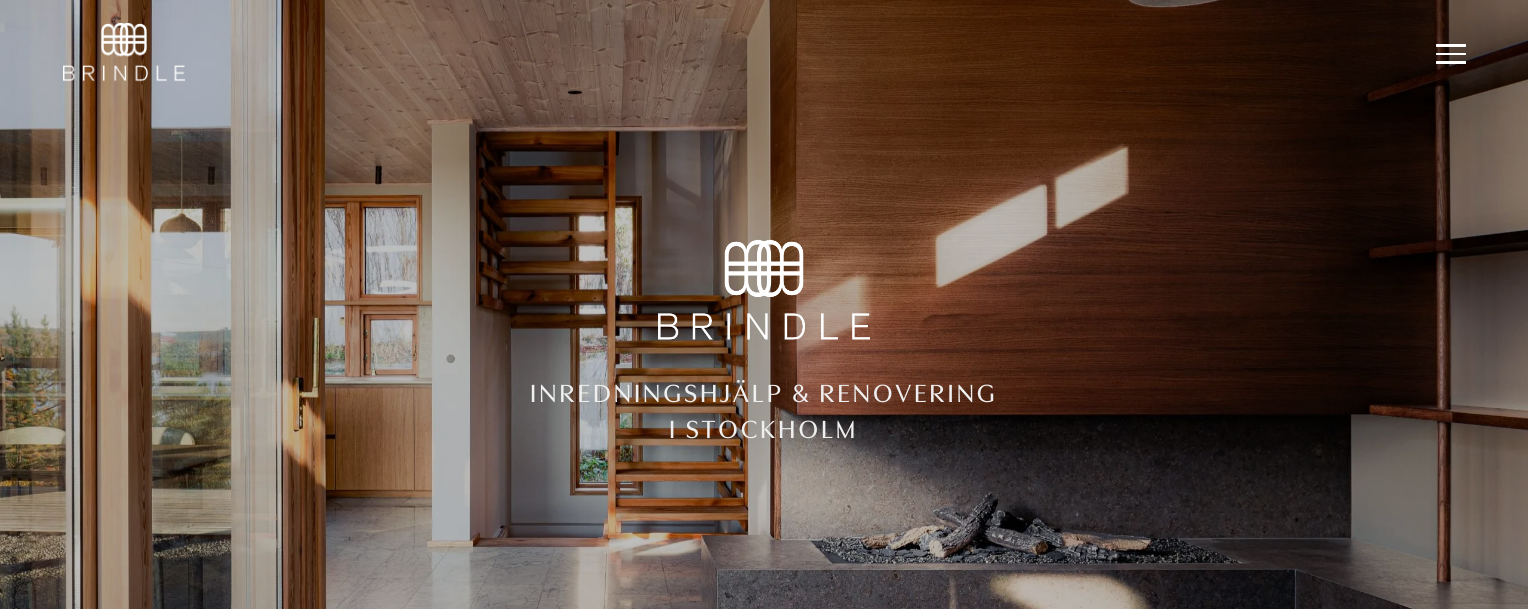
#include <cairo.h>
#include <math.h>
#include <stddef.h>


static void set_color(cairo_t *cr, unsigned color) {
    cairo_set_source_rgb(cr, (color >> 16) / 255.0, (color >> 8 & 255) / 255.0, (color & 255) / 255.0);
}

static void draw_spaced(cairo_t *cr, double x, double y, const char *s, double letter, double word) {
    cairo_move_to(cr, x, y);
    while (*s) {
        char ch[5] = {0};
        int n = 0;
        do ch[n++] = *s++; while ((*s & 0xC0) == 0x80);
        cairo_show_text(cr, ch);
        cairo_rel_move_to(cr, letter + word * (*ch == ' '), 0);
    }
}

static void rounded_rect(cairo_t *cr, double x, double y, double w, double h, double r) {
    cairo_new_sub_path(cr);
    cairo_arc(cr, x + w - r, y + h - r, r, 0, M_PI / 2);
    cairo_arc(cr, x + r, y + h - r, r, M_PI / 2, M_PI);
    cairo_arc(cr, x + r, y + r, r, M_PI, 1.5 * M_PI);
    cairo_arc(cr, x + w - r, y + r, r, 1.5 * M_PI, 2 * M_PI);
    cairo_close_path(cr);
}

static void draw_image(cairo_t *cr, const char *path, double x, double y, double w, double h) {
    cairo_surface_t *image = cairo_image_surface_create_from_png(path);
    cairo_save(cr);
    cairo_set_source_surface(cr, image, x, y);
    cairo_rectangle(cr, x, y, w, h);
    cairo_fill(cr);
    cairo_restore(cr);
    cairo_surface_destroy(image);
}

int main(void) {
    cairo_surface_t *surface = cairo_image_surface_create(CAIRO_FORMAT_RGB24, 1528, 609);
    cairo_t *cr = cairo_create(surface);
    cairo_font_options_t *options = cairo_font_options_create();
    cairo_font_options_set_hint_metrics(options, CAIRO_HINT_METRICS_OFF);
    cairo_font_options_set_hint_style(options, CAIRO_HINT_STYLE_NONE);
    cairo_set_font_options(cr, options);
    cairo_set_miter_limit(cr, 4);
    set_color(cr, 0xFFFFFF);
    cairo_paint(cr);
    draw_image(cr, "assets/img2.png", 0, 0, 1528, 609);
    draw_image(cr, "assets/img1.png", 63, 23, 122, 59);
    set_color(cr, 0xFFFFFF);
    rounded_rect(cr, 1436, 44, 30, 3, 0.5);
    cairo_fill(cr);
    rounded_rect(cr, 1436, 53, 30, 2, 0.5);
    cairo_fill(cr);
    rounded_rect(cr, 1436, 61, 30, 3, 0.5);
    cairo_fill(cr);
    draw_image(cr, "assets/img3.png", 658, 239, 212, 101);
    cairo_select_font_face(cr, "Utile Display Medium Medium", CAIRO_FONT_SLANT_NORMAL, CAIRO_FONT_WEIGHT_NORMAL);
    cairo_set_font_size(cr, 26);
    set_color(cr, 0xEFEFEF);
    draw_spaced(cr, 530, 402, "INREDNINGSHJÄLP & RENOVERING", 3, 0);
    draw_spaced(cr, 669, 438, "I STOCKHOLM", 3, 0);
    cairo_surface_write_to_png(surface, "output.png");
    cairo_font_options_destroy(options);
    cairo_destroy(cr);
    cairo_surface_destroy(surface);
    return 0;
}
